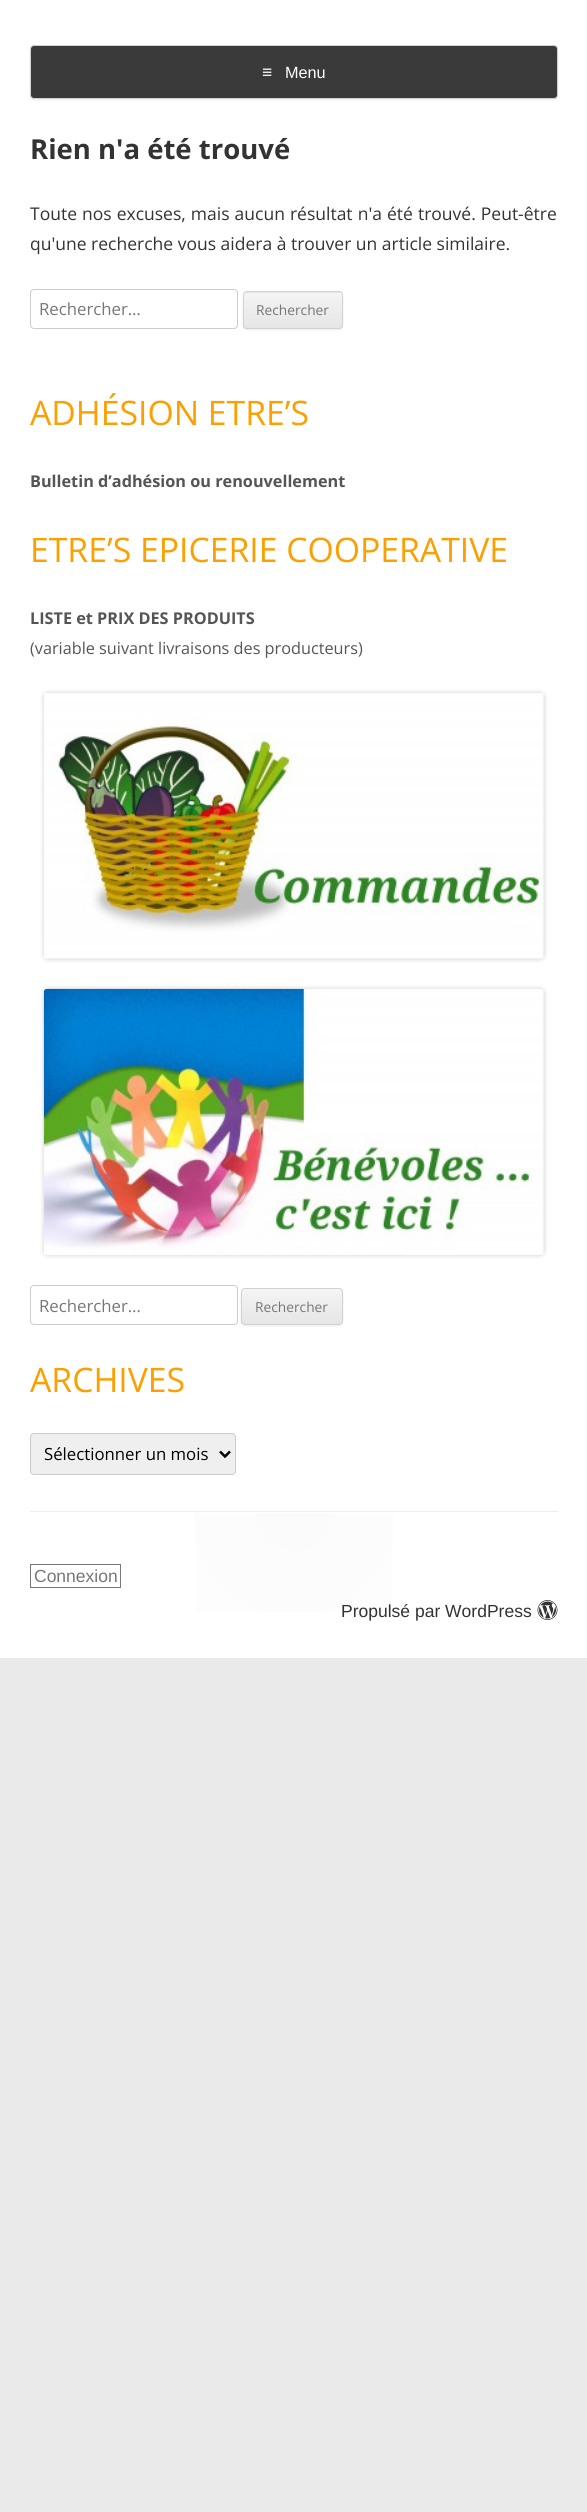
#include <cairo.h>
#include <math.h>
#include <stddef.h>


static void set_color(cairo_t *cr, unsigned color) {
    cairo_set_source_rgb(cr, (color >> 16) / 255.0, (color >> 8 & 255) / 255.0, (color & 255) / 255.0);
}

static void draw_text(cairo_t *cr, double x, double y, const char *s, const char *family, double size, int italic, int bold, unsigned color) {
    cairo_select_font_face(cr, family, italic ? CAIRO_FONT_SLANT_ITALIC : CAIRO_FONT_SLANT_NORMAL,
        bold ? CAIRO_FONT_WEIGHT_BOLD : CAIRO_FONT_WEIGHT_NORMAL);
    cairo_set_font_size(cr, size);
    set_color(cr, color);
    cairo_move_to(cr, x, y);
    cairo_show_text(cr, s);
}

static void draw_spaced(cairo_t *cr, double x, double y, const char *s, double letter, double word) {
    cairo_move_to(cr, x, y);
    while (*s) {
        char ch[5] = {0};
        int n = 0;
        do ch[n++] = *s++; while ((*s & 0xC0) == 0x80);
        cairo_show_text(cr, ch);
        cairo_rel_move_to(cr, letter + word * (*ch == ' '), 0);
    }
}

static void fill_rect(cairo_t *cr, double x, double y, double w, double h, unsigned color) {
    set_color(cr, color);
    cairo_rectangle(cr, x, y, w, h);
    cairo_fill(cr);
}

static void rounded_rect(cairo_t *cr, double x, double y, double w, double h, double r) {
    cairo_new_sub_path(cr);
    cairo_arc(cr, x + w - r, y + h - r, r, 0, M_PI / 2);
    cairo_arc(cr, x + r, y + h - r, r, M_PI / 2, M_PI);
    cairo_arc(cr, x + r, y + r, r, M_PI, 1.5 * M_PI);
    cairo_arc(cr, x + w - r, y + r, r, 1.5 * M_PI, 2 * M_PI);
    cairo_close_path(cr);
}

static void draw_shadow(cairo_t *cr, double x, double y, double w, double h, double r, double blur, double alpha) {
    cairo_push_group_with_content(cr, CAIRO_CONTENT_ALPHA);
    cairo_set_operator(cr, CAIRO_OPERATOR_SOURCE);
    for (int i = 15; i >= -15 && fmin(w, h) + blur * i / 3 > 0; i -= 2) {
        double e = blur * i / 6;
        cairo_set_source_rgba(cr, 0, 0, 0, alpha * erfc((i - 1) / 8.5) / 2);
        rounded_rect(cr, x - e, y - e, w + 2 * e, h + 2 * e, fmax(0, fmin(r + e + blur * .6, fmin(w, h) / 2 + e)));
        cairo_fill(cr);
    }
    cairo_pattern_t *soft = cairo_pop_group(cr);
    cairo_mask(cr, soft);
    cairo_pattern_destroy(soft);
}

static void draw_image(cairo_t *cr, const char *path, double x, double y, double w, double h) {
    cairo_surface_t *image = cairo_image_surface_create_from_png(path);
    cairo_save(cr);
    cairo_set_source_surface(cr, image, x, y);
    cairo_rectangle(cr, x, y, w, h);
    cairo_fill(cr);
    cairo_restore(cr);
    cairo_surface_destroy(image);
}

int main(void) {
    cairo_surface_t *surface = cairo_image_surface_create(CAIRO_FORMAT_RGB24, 587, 2512);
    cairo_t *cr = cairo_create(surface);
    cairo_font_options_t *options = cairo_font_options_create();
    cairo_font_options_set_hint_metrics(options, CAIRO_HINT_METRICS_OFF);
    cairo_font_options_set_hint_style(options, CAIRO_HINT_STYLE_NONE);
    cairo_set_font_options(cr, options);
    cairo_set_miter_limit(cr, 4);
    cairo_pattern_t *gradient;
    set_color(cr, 0xEAEAEA);
    cairo_paint(cr);
    fill_rect(cr, 0, 0, 587, 1658, 0xFFFFFF);
    set_color(cr, 0x404040);
    draw_shadow(cr, 30, 46, 528, 54, 4, 1, 0.1);
    set_color(cr, 0x3A3A3A);
    rounded_rect(cr, 30.5, 45.5, 527, 53, 3.5);
    cairo_fill_preserve(cr);
    set_color(cr, 0xD2D2D2);
    cairo_set_line_width(cr, 1);
    cairo_stroke(cr);
    draw_text(cr, 262, 78, "≡", "Liberation Sans", 17.5, 0, 0, 0xFFFFFF);
    draw_text(cr, 285, 78, "Menu", "Liberation Sans", 16.25, 0, 0, 0xFFFFFF);
    draw_text(cr, 30, 159, "Rien n'a été trouvé", "Open Sans", 27.5, 0, 1, 0x333333);
    cairo_select_font_face(cr, "Open Sans", CAIRO_FONT_SLANT_NORMAL, CAIRO_FONT_WEIGHT_NORMAL);
    cairo_set_font_size(cr, 17.5);
    draw_spaced(cr, 30, 220, "Toute nos excuses, mais aucun résultat n'a été trouvé. Peut-être", 0, 0.5);
    draw_text(cr, 30, 250, "qu'une recherche vous aidera à trouver un article similaire.", "Open Sans", 17.5, 0, 0, 0x333333);
    rounded_rect(cr, 30.5, 289.5, 207, 39, 3.5);
    set_color(cr, 0xCCCCCC);
    cairo_stroke(cr);
    draw_text(cr, 39, 315, "Rechercher…", "Open Sans", 16.75, 0, 0, 0x777777);
    set_color(cr, 0x404040);
    draw_shadow(cr, 243, 293, 100, 37, 4, 1, 0.1);
    set_color(cr, 0xE6E6E6);
    rounded_rect(cr, 243, 291, 100, 38, 4);
    cairo_fill(cr);
    cairo_save(cr);
    rounded_rect(cr, 243, 291, 100, 38, 4);
    cairo_clip(cr);
    gradient = cairo_pattern_create_linear(293, 293, 293, 328);
    cairo_pattern_add_color_stop_rgba(gradient, 0, 0.957, 0.957, 0.957, 1);
    cairo_pattern_add_color_stop_rgba(gradient, 1, 0.902, 0.902, 0.902, 1);
    cairo_set_source(cr, gradient);
    cairo_pattern_destroy(gradient);
    cairo_rectangle(cr, 243, 293, 100, 35);
    cairo_fill(cr);
    cairo_restore(cr);
    rounded_rect(cr, 243.5, 291.5, 99, 37, 3.5);
    set_color(cr, 0xD2D2D2);
    cairo_stroke(cr);
    draw_text(cr, 256, 315, "Rechercher", "Open Sans", 13.75, 0, 0, 0x777777);
    draw_text(cr, 30, 425, "ADHÉSION ETRE’S", "Open Sans", 33.75, 0, 0, 0xFC9F00);
    draw_text(cr, 30, 487, "Bulletin d’adhésion ou renouvellement", "Open Sans", 16.25, 0, 1, 0x555555);
    draw_text(cr, 30, 562, "ETRE’S EPICERIE COOPERATIVE", "Open Sans", 33.75, 0, 0, 0xFC9F00);
    draw_text(cr, 30, 624, "LISTE et PRIX DES PRODUITS", "Open Sans", 16.25, 0, 1, 0x555555);
    draw_text(cr, 30, 654, "(variable suivant livraisons des producteurs)", "Open Sans", 16.25, 0, 0, 0x555555);
    set_color(cr, 0x000000);
    draw_shadow(cr, 44, 693, 500, 266, 4, 2.5, 0.2);
    draw_image(cr, "assets/img1.png", 44, 693, 500, 266);
    draw_shadow(cr, 44, 989, 500, 266, 4, 2.5, 0.2);
    draw_image(cr, "assets/img2.png", 43, 988, 501, 267);
    rounded_rect(cr, 30.5, 1285.5, 207, 39, 3.5);
    set_color(cr, 0xCCCCCC);
    cairo_stroke(cr);
    draw_text(cr, 39, 1312, "Rechercher…", "Open Sans", 16.75, 0, 0, 0x777777);
    set_color(cr, 0x404040);
    draw_shadow(cr, 241, 1289, 102, 37, 4, 1, 0.1);
    cairo_save(cr);
    rounded_rect(cr, 241, 1288, 102, 37, 4);
    cairo_clip(cr);
    gradient = cairo_pattern_create_linear(292, 1289, 292, 1324);
    cairo_pattern_add_color_stop_rgba(gradient, 0, 0.957, 0.957, 0.957, 1);
    cairo_pattern_add_color_stop_rgba(gradient, 1, 0.902, 0.902, 0.902, 1);
    cairo_set_source(cr, gradient);
    cairo_pattern_destroy(gradient);
    cairo_rectangle(cr, 241, 1289, 102, 35);
    cairo_fill(cr);
    cairo_restore(cr);
    rounded_rect(cr, 241.5, 1288.5, 101, 36, 3.5);
    set_color(cr, 0xD2D2D2);
    cairo_stroke(cr);
    draw_text(cr, 255, 1312, "Rechercher", "Open Sans", 13.75, 0, 0, 0x777777);
    draw_text(cr, 30, 1392, "ARCHIVES", "Open Sans", 33.75, 0, 0, 0xFC9F00);
    set_color(cr, 0xEFEFEF);
    rounded_rect(cr, 30.5, 1433.5, 205, 41, 3.5);
    cairo_fill_preserve(cr);
    set_color(cr, 0xCCCCCC);
    cairo_stroke(cr);
    cairo_new_path(cr);
    cairo_move_to(cr, 220, 1451.5);
    cairo_line_to(cr, 225, 1456.5);
    cairo_line_to(cr, 230, 1451.5);
    set_color(cr, 0x000000);
    cairo_set_line_width(cr, 2.5);
    cairo_stroke(cr);
    draw_text(cr, 44, 1460, "Sélectionner un mois", "Open Sans", 16.75, 0, 0, 0x000000);
    gradient = cairo_pattern_create_radial(294, 1513, 0, 294, 1513, 264);
    cairo_pattern_add_color_stop_rgba(gradient, 0, 0.984, 0.984, 0.984, 1);
    cairo_pattern_add_color_stop_rgba(gradient, 1, 1, 1, 1, 1);
    cairo_set_source(cr, gradient);
    cairo_pattern_destroy(gradient);
    cairo_rectangle(cr, 195, 1513, 198, 99);
    cairo_fill(cr);
    fill_rect(cr, 30, 1511, 528, 1, 0xEDEDED);
    cairo_rectangle(cr, 30.5, 1564.5, 90, 23);
    set_color(cr, 0x777777);
    cairo_set_line_width(cr, 1);
    cairo_stroke(cr);
    draw_text(cr, 34, 1582, "Connexion", "Liberation Sans", 17.5, 0, 0, 0x777777);
    draw_text(cr, 341, 1617, "Propulsé par WordPress", "Liberation Sans", 17.5, 0, 0, 0x333333);
    draw_image(cr, "assets/img3.png", 537, 1600, 21, 20);
    cairo_surface_write_to_png(surface, "output.png");
    cairo_font_options_destroy(options);
    cairo_destroy(cr);
    cairo_surface_destroy(surface);
    return 0;
}
